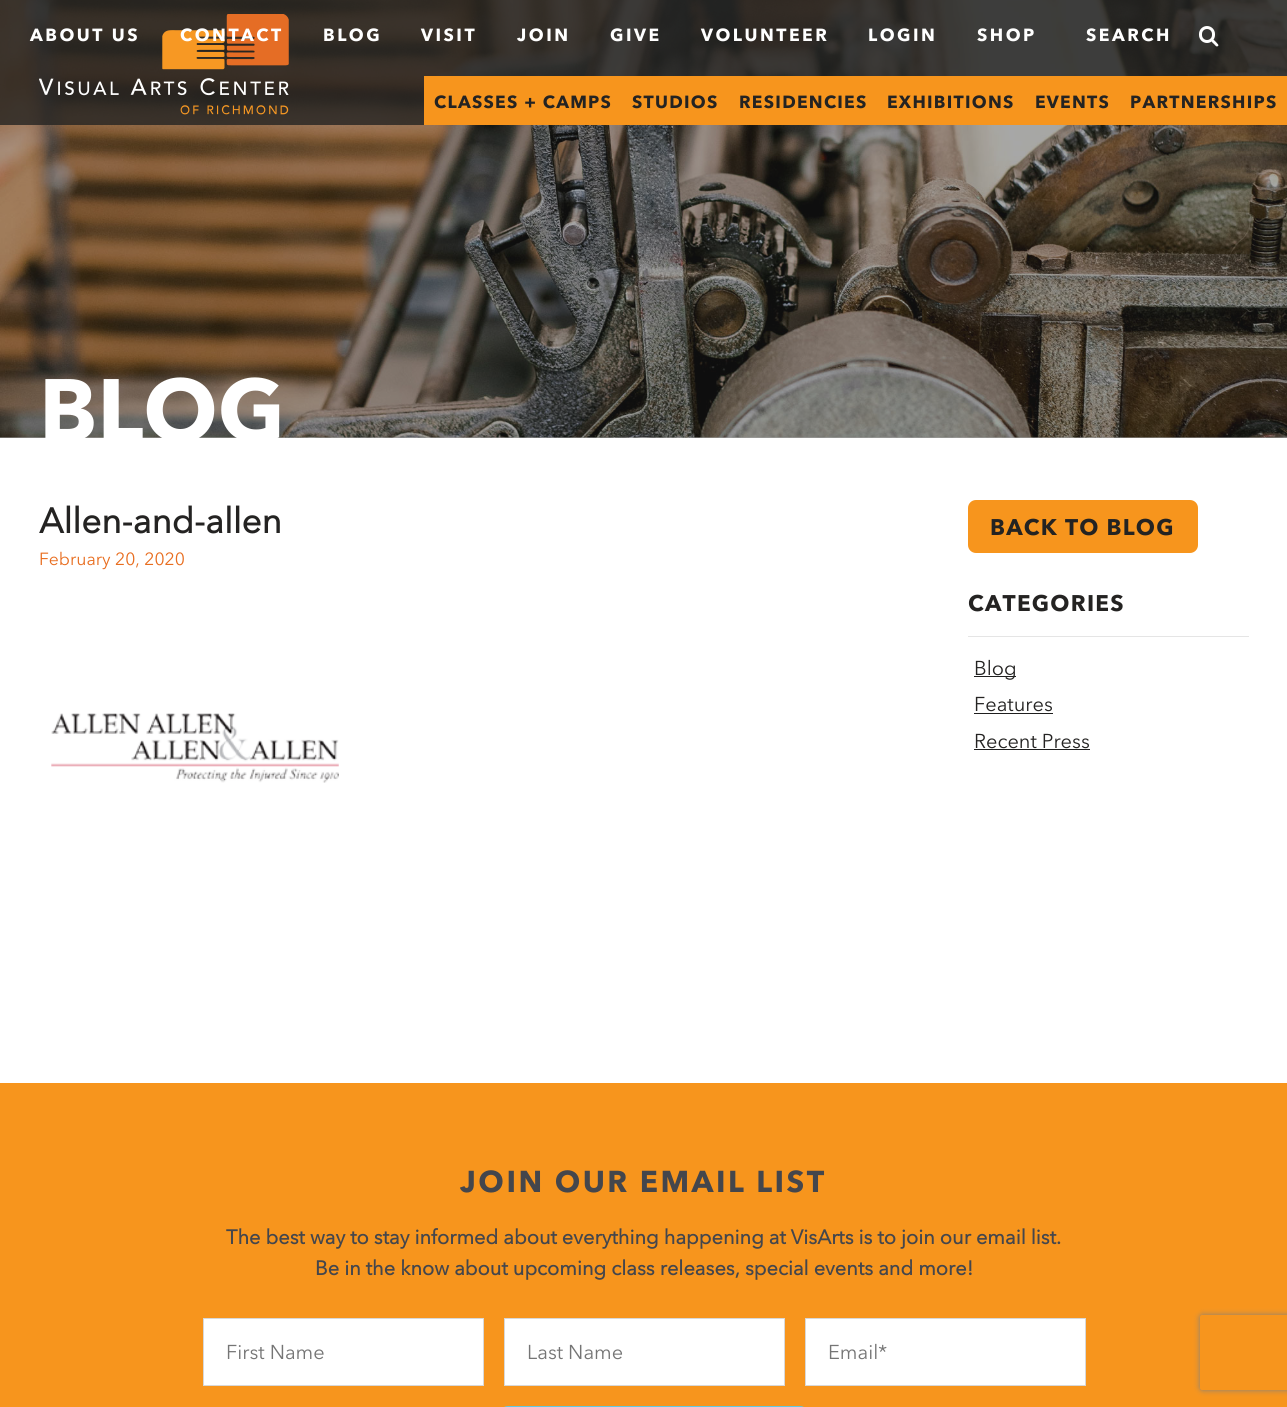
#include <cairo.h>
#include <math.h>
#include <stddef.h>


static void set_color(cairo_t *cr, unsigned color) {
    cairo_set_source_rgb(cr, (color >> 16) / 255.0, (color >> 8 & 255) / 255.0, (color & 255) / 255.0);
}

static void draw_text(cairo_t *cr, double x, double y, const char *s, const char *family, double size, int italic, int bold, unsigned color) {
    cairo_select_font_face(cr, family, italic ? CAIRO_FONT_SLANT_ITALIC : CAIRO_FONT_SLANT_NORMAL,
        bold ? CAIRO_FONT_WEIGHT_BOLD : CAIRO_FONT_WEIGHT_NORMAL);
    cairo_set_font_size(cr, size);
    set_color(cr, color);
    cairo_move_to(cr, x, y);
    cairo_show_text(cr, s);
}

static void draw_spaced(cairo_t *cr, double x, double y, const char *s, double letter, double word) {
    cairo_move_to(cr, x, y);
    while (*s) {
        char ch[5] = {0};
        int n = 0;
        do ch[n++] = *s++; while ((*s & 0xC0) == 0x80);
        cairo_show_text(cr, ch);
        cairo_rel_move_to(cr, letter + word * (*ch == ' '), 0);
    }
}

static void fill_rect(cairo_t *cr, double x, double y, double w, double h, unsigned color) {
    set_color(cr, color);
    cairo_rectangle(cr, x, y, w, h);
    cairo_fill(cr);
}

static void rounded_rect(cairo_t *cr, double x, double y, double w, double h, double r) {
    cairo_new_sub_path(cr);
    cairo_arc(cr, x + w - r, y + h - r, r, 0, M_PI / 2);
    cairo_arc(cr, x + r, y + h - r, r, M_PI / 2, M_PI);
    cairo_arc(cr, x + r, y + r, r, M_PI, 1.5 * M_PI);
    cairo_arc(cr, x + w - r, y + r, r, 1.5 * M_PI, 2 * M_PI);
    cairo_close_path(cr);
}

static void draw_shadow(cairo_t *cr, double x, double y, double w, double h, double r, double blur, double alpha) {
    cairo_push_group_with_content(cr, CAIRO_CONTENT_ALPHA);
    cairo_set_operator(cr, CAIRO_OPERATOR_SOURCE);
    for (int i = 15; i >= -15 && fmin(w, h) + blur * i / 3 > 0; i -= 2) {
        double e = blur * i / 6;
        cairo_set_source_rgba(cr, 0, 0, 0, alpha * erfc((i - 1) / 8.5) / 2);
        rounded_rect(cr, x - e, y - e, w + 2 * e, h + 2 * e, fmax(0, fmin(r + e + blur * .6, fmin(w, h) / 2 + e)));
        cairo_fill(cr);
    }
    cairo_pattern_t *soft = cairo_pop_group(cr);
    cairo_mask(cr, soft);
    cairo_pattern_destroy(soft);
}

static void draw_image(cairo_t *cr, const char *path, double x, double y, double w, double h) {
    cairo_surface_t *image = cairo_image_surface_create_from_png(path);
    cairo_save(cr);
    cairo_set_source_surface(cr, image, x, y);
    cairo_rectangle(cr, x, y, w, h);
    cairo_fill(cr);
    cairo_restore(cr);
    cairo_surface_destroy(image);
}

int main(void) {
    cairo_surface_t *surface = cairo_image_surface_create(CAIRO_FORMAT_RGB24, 1287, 1407);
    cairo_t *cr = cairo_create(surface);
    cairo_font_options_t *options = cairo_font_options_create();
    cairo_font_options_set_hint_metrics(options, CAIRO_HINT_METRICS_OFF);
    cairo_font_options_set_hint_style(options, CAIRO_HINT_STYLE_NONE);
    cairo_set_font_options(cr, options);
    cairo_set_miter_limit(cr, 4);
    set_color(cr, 0xFFFFFF);
    cairo_paint(cr);
    fill_rect(cr, 0, 437, 1287, 1, 0xA7A7A7);
    draw_image(cr, "assets/img2.png", 0, 0, 1287, 438);
    cairo_set_source_rgba(cr, 0.141, 0.137, 0.133, 0.8);
    cairo_rectangle(cr, 0, 0, 1287, 125);
    cairo_fill(cr);
    draw_image(cr, "assets/img1.png", 39, 14, 250, 101);
    cairo_select_font_face(cr, "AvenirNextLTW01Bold", CAIRO_FONT_SLANT_NORMAL, CAIRO_FONT_WEIGHT_BOLD);
    cairo_set_font_size(cr, 17.5);
    set_color(cr, 0xFFFFFF);
    draw_spaced(cr, 30, 41, "ABOUT US", 2.5, 0);
    draw_spaced(cr, 180, 41, "CONTACT", 2.5, 0);
    draw_spaced(cr, 323, 41, "BLOG", 2.5, 0);
    draw_spaced(cr, 421, 41, "VISIT", 2.5, 0);
    draw_spaced(cr, 517, 41, "JOIN", 2.5, 0);
    draw_spaced(cr, 610, 41, "GIVE", 2.5, 0);
    draw_spaced(cr, 701, 41, "VOLUNTEER", 2.5, 0);
    draw_spaced(cr, 868, 41, "LOGIN", 2.5, 0);
    draw_spaced(cr, 977, 41, "SHOP", 2.5, 0);
    draw_spaced(cr, 1086, 41, "SEARCH", 2.5, 0);
    rounded_rect(cr, 1200.5, 27.5, 13, 14, 6.5);
    cairo_set_line_width(cr, 3);
    cairo_stroke(cr);
    cairo_new_path(cr);
    cairo_move_to(cr, 1212, 40);
    cairo_curve_to(cr, 1213.5, 38.5, 1215, 41.5, 1216, 42);
    cairo_curve_to(cr, 1216.5, 43, 1219.5, 45, 1218, 46);
    cairo_curve_to(cr, 1216.5, 47.5, 1215, 45, 1214, 44);
    cairo_curve_to(cr, 1213.5, 43.5, 1210.5, 41.5, 1212, 40);
    cairo_close_path(cr);
    cairo_fill(cr);
    fill_rect(cr, 424, 76, 863, 49, 0xF7951D);
    set_color(cr, 0x242322);
    draw_spaced(cr, 434, 108, "CLASSES + CAMPS", 1.25, 0);
    draw_spaced(cr, 632, 108, "STUDIOS", 1.25, 0);
    draw_spaced(cr, 739, 108, "RESIDENCIES", 1.25, 0);
    draw_spaced(cr, 887, 108, "EXHIBITIONS", 1.25, 0);
    draw_spaced(cr, 1035, 108, "EVENTS", 1.25, 0);
    draw_spaced(cr, 1130, 108, "PARTNERSHIPS", 1.25, 0);
    draw_text(cr, 39, 441, "BLOG", "AvenirNextLTW01Bold", 87.5, 0, 1, 0xFFFFFF);
    draw_text(cr, 39, 533, "Allen-and-allen", "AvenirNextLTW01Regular", 35, 0, 1, 0x242322);
    draw_text(cr, 39, 565, "February 20, 2020", "AvenirNextLTW01Regular", 17.5, 0, 0, 0xE86D1F);
    draw_image(cr, "assets/img3.png", 51, 713, 288, 70);
    set_color(cr, 0xF7951D);
    rounded_rect(cr, 969.5, 501.5, 227, 50, 6.5);
    cairo_fill_preserve(cr);
    cairo_stroke(cr);
    cairo_select_font_face(cr, "AvenirNextLTW01Bold", CAIRO_FONT_SLANT_NORMAL, CAIRO_FONT_WEIGHT_BOLD);
    cairo_set_font_size(cr, 22.5);
    set_color(cr, 0x242322);
    draw_spaced(cr, 990, 535, "BACK TO BLOG", 1.25, 0);
    fill_rect(cr, 968, 636, 281, 1, 0xE5E5E5);
    set_color(cr, 0x242322);
    draw_spaced(cr, 968, 611, "CATEGORIES", 1.25, 0);
    fill_rect(cr, 974, 676, 42, 1, 0x1F1F1F);
    draw_text(cr, 974, 675, "Blog", "AvenirNextLTW01Regular", 20, 0, 0, 0x242322);
    draw_text(cr, 974, 711, "Features", "AvenirNextLTW01Regular", 20, 0, 0, 0x242322);
    fill_rect(cr, 974, 713, 79, 1, 0x1F1F1F);
    draw_text(cr, 974, 748, "Recent Press", "AvenirNextLTW01Regular", 20, 0, 0, 0x242322);
    fill_rect(cr, 974, 749, 116, 1, 0x1F1F1F);
    fill_rect(cr, 0, 1083, 1287, 324, 0xF7951D);
    cairo_select_font_face(cr, "AvenirNextLTW01Bold", CAIRO_FONT_SLANT_NORMAL, CAIRO_FONT_WEIGHT_BOLD);
    cairo_set_font_size(cr, 30);
    set_color(cr, 0x44464C);
    draw_spaced(cr, 460, 1192, "JOIN OUR EMAIL LIST", 2.5, 0);
    draw_text(cr, 226, 1244, "The best way to stay informed about everything happening at VisArts is to join our email list.", "AvenirNextLTW01Regular", 20, 0, 1, 0x44464C);
    draw_text(cr, 315, 1275, "Be in the know about upcoming class releases, special events and more!", "AvenirNextLTW01Regular", 20, 0, 1, 0x44464C);
    set_color(cr, 0xFFFFFF);
    cairo_rectangle(cr, 203.5, 1318.5, 280, 67);
    cairo_fill_preserve(cr);
    set_color(cr, 0xD8D8D8);
    cairo_set_line_width(cr, 1);
    cairo_stroke(cr);
    draw_text(cr, 226, 1359, "First Name", "AvenirNextLTW01Regular", 20, 0, 0, 0x757575);
    set_color(cr, 0xFFFFFF);
    cairo_rectangle(cr, 504.5, 1318.5, 280, 67);
    cairo_fill_preserve(cr);
    set_color(cr, 0xD8D8D8);
    cairo_stroke(cr);
    draw_text(cr, 527, 1359, "Last Name", "AvenirNextLTW01Regular", 20, 0, 0, 0x757575);
    set_color(cr, 0xFFFFFF);
    cairo_rectangle(cr, 805.5, 1318.5, 280, 67);
    cairo_fill_preserve(cr);
    set_color(cr, 0xD8D8D8);
    cairo_stroke(cr);
    draw_text(cr, 828, 1359, "Email*", "AvenirNextLTW01Regular", 20, 0, 0, 0x757575);
    set_color(cr, 0x62CAE2);
    rounded_rect(cr, 500, 1406, 308, 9, 8);
    cairo_fill(cr);
    cairo_save(cr);
    cairo_set_fill_rule(cr, CAIRO_FILL_RULE_EVEN_ODD);
    cairo_new_path(cr);
    cairo_move_to(cr, 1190, 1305);
    cairo_line_to(cr, 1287, 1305);
    cairo_line_to(cr, 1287, 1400);
    cairo_line_to(cr, 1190, 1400);
    cairo_close_path(cr);
    cairo_move_to(cr, 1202.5, 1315);
    cairo_line_to(cr, 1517.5, 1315);
    cairo_curve_to(cr, 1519, 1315, 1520, 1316, 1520, 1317.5);
    cairo_line_to(cr, 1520, 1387.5);
    cairo_curve_to(cr, 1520, 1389, 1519, 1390, 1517.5, 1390);
    cairo_line_to(cr, 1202.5, 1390);
    cairo_curve_to(cr, 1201, 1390, 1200, 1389, 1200, 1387.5);
    cairo_line_to(cr, 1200, 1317.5);
    cairo_curve_to(cr, 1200, 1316, 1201, 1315, 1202.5, 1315);
    cairo_close_path(cr);
    cairo_clip(cr);
    set_color(cr, 0x808080);
    draw_shadow(cr, 1200, 1315, 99, 75, 2.5, 3, 1);
    cairo_restore(cr);
    cairo_surface_write_to_png(surface, "output.png");
    cairo_font_options_destroy(options);
    cairo_destroy(cr);
    cairo_surface_destroy(surface);
    return 0;
}
